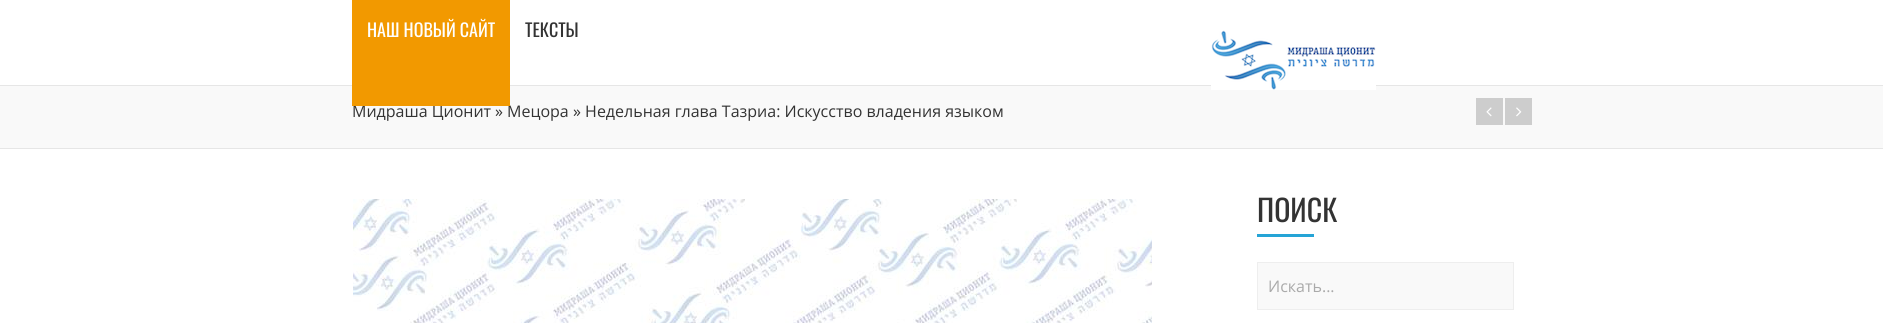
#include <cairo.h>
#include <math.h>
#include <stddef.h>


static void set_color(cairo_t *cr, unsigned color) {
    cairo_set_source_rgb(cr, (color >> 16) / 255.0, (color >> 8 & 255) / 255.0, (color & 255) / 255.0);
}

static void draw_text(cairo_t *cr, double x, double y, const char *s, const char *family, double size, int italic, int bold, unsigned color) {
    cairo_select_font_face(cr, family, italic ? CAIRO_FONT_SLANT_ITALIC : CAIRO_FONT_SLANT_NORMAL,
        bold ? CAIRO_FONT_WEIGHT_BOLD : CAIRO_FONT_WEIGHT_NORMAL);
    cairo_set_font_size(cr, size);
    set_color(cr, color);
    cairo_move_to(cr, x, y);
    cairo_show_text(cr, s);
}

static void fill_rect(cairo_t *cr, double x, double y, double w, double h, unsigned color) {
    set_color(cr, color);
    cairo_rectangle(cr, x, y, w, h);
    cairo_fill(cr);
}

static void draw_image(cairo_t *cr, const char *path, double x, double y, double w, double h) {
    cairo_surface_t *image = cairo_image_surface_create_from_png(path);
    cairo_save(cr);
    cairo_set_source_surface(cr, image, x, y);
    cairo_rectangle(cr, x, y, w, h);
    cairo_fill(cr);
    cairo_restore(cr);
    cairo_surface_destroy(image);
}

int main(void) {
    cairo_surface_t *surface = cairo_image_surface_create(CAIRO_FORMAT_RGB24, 1883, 323);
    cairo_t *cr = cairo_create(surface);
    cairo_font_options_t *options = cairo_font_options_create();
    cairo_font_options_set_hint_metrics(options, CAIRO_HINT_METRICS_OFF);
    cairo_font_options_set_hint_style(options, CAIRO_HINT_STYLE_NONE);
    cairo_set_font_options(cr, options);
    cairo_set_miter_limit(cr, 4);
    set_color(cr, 0xFFFFFF);
    cairo_paint(cr);
    fill_rect(cr, 0, 86, 1883, 62, 0xF9F9F9);
    fill_rect(cr, 0, 85, 1883, 1, 0xE6E6E6);
    draw_text(cr, 352, 117, "Мидраша Ционит", "Open Sans", 16, 0, 0, 0x333333);
    draw_text(cr, 507, 117, "Мецора", "Open Sans", 16, 0, 0, 0x333333);
    fill_rect(cr, 352, 0, 158, 106, 0xF29900);
    draw_text(cr, 367, 37, "НАШ НОВЫЙ САЙТ", "Oswald", 18, 0, 0, 0xFFFFFF);
    draw_text(cr, 525, 37, "ТЕКСТЫ", "Oswald", 18, 0, 0, 0x333333);
    draw_image(cr, "assets/img1.png", 1211, 30, 165, 60);
    fill_rect(cr, 0, 148, 1883, 1, 0xE6E6E6);
    draw_text(cr, 495, 117, "»", "Open Sans", 16, 0, 0, 0x333333);
    draw_text(cr, 573, 117, "» Недельная глава Тазриа: Искусство владения языком", "Open Sans", 16, 0, 0, 0x333333);
    fill_rect(cr, 1476, 98, 27, 27, 0xCDCDCD);
    draw_image(cr, "assets/img2.png", 1486, 107, 6, 10);
    fill_rect(cr, 1505, 98, 27, 27, 0xCDCDCD);
    draw_image(cr, "assets/img3.png", 1516, 107, 6, 10);
    draw_image(cr, "assets/img4.png", 353, 199, 799, 124);
    draw_text(cr, 1257, 222, "ПОИСК", "Oswald", 30, 0, 0, 0x333333);
    fill_rect(cr, 1257, 234, 57, 3, 0x25A4D6);
    set_color(cr, 0xF9F9F9);
    cairo_rectangle(cr, 1257.5, 262.5, 256, 47);
    cairo_fill_preserve(cr);
    set_color(cr, 0xEEEEEE);
    cairo_set_line_width(cr, 1);
    cairo_stroke(cr);
    draw_text(cr, 1268, 292, "Искать...", "Open Sans", 16, 0, 0, 0xAAAAAA);
    cairo_surface_write_to_png(surface, "output.png");
    cairo_font_options_destroy(options);
    cairo_destroy(cr);
    cairo_surface_destroy(surface);
    return 0;
}
